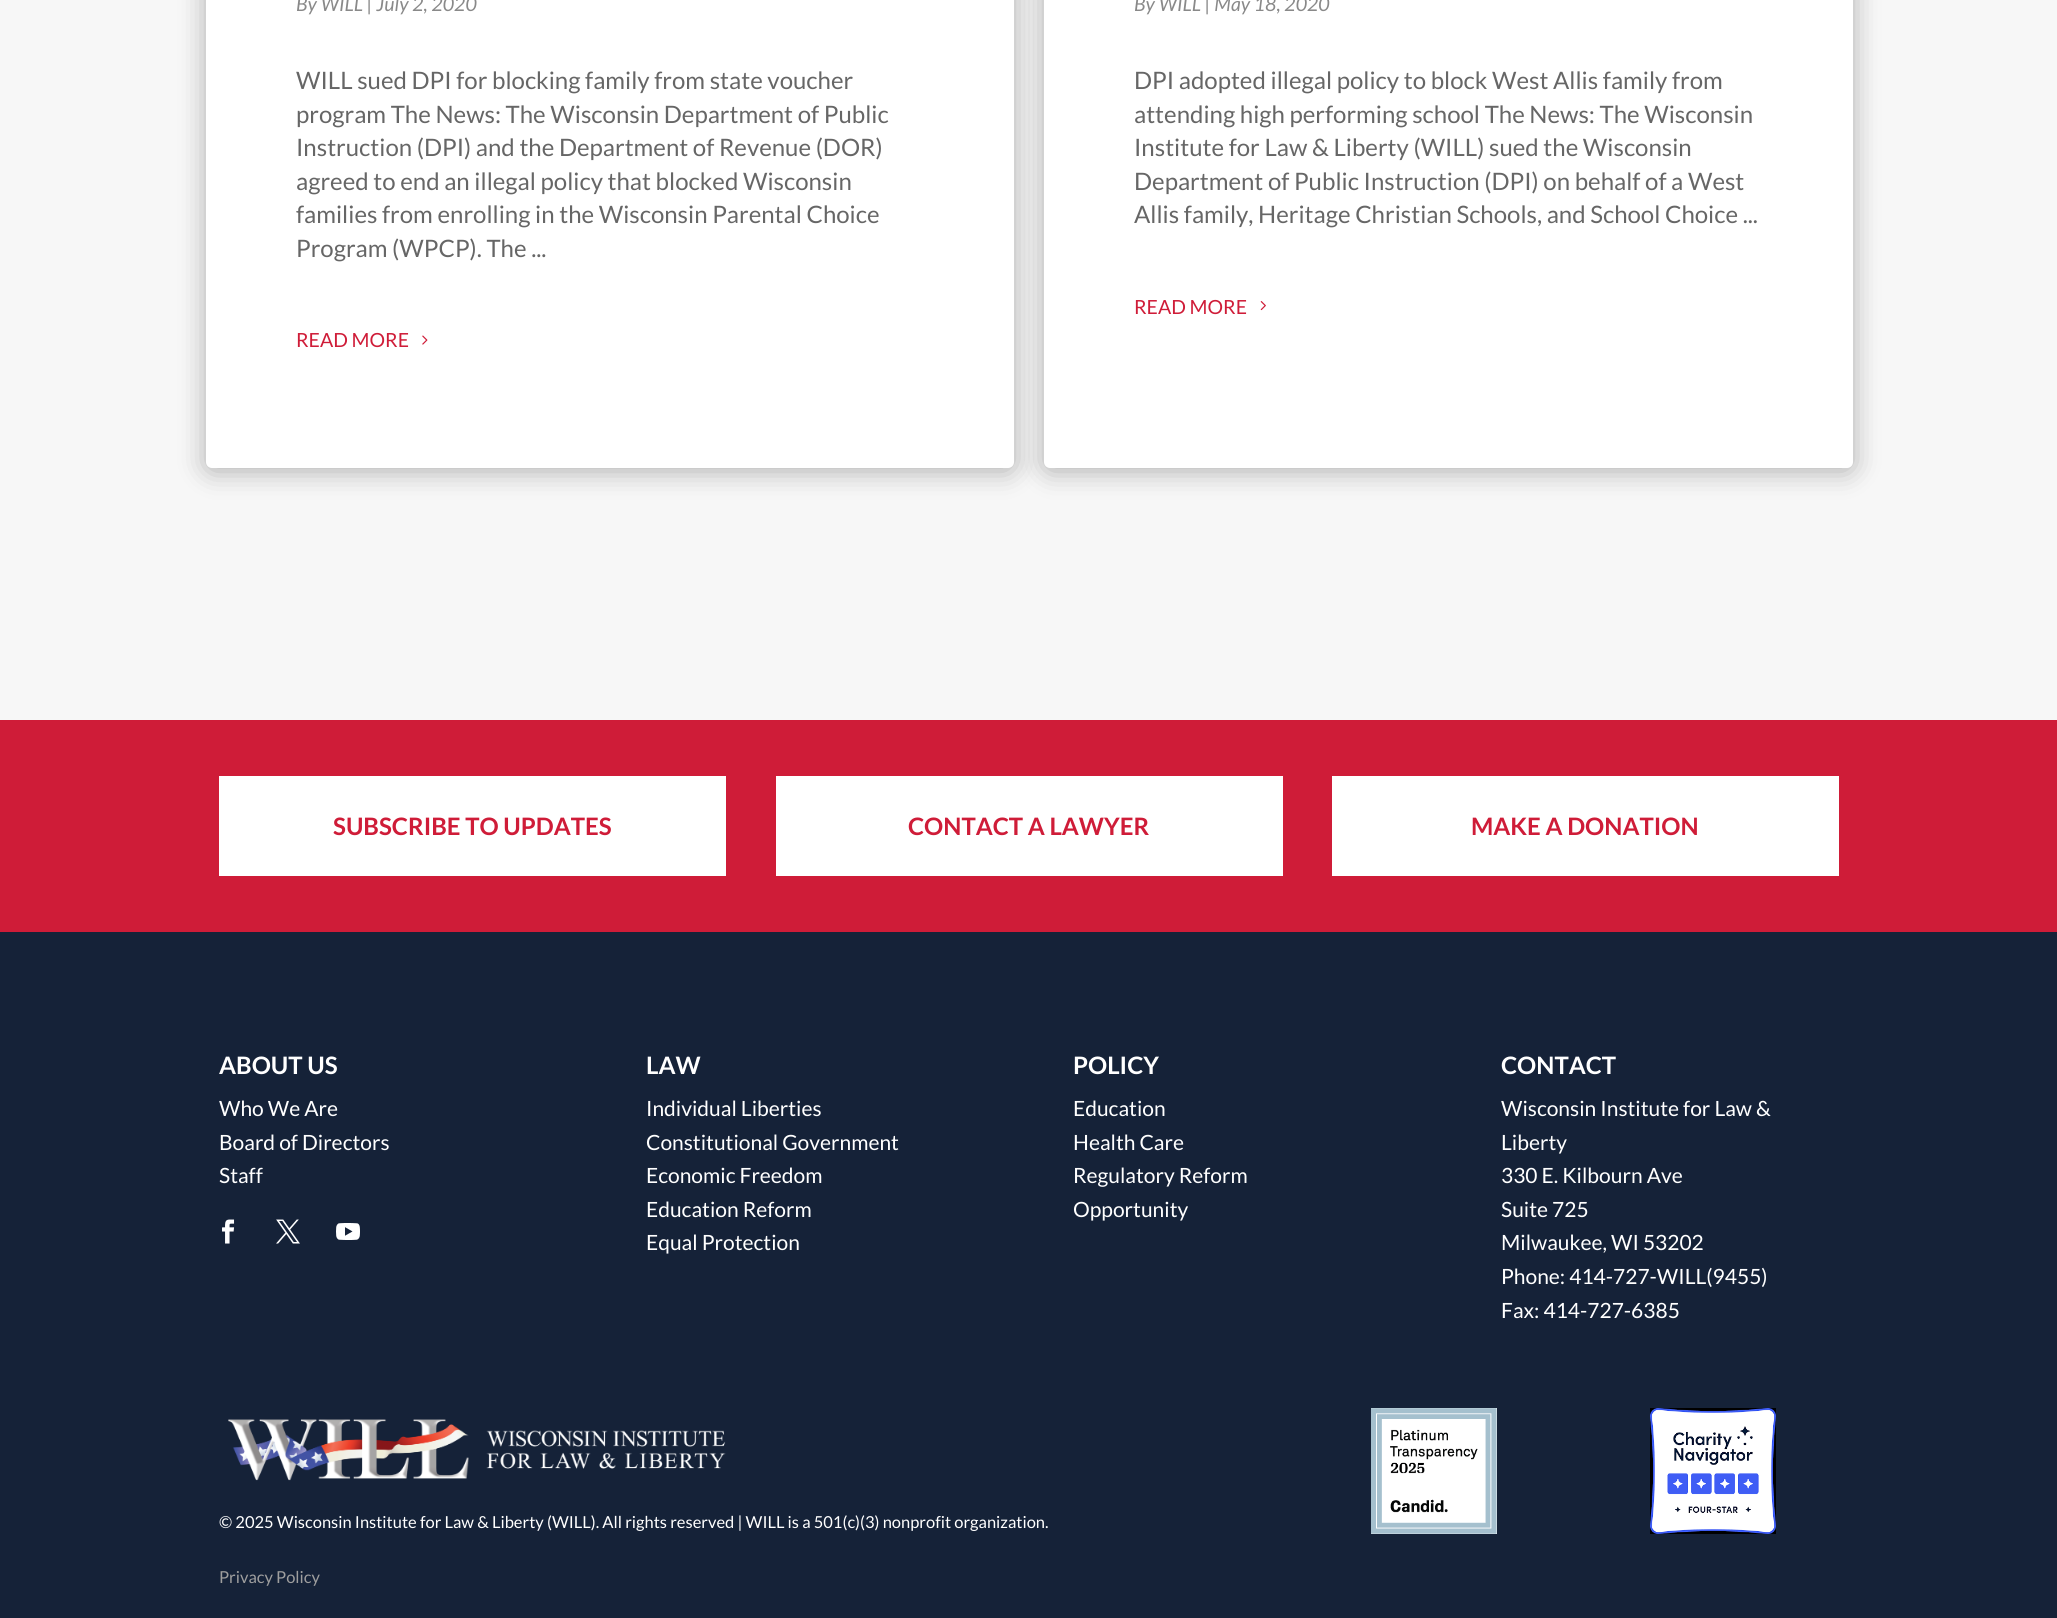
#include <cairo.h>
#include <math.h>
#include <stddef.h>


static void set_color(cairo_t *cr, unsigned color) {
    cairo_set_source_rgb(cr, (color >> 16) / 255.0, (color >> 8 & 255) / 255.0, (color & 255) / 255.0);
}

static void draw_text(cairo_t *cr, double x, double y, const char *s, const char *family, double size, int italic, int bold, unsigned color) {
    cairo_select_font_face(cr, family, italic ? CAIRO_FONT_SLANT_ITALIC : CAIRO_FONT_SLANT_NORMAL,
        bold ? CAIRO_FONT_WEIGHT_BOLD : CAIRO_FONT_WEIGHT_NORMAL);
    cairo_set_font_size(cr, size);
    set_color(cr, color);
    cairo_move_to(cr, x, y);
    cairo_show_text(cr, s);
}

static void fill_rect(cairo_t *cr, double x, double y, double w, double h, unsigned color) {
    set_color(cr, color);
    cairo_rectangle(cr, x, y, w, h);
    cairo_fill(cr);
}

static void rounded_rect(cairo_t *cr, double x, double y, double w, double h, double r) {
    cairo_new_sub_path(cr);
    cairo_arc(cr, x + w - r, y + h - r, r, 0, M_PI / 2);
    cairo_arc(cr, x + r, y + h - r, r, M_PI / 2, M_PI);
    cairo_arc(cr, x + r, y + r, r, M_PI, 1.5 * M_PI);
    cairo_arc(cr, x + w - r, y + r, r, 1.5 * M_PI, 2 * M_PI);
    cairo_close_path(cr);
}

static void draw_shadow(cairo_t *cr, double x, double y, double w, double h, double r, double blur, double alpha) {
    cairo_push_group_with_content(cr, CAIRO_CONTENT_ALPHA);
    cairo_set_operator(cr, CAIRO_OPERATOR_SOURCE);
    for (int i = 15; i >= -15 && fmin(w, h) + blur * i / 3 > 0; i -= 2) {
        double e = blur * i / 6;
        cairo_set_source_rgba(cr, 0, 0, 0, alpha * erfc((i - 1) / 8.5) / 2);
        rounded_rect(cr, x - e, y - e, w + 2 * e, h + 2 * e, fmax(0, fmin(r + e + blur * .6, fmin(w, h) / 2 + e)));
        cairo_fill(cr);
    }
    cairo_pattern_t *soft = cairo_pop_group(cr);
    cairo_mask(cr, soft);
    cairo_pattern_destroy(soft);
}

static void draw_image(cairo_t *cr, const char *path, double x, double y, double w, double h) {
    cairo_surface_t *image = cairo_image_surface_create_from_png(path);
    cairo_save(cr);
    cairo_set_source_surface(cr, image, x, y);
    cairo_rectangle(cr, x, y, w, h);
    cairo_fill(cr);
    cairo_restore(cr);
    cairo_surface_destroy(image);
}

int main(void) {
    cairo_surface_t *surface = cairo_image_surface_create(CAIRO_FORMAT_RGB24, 2057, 1618);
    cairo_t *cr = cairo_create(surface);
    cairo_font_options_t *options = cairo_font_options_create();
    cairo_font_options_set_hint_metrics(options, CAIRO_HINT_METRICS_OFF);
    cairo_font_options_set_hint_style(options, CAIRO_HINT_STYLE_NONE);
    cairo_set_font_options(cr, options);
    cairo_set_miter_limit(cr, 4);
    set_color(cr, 0xF7F7F7);
    cairo_paint(cr);
    set_color(cr, 0x000000);
    draw_shadow(cr, 206, -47, 808, 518, 6, 13.5, 0.3);
    set_color(cr, 0xFFFFFF);
    rounded_rect(cr, 206, -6, 808, 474, 6);
    cairo_fill(cr);
    draw_text(cr, 296, 11, "By WILL | July 2, 2020", "Lato", 19.5, 1, 0, 0x898989);
    draw_text(cr, 296, 89, "WILL sued DPI for blocking family from state voucher", "Lato", 24, 0, 0, 0x666666);
    draw_text(cr, 296, 123, "program The News: The Wisconsin Department of Public", "Lato", 24, 0, 0, 0x666666);
    draw_text(cr, 296, 156, "Instruction (DPI) and the Department of Revenue (DOR)", "Lato", 24, 0, 0, 0x666666);
    draw_text(cr, 296, 190, "agreed to end an illegal policy that blocked Wisconsin", "Lato", 24, 0, 0, 0x666666);
    draw_text(cr, 296, 223, "families from enrolling in the Wisconsin Parental Choice", "Lato", 24, 0, 0, 0x666666);
    draw_text(cr, 296, 257, "Program (WPCP). The ...", "Lato", 24, 0, 0, 0x666666);
    draw_text(cr, 296, 347, "READ MORE", "Lato", 19.5, 0, 0, 0xCF1C38);
    draw_image(cr, "assets/img1.png", 422, 335, 6, 10);
    set_color(cr, 0x000000);
    draw_shadow(cr, 1044, -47, 809, 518, 6, 13.5, 0.3);
    set_color(cr, 0xFFFFFF);
    rounded_rect(cr, 1044, -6, 809, 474, 6);
    cairo_fill(cr);
    draw_text(cr, 1134, 11, "By WILL | May 18, 2020", "Lato", 19.5, 1, 0, 0x898989);
    draw_text(cr, 1134, 89, "DPI adopted illegal policy to block West Allis family from", "Lato", 24, 0, 0, 0x666666);
    draw_text(cr, 1134, 123, "attending high performing school The News: The Wisconsin", "Lato", 24, 0, 0, 0x666666);
    draw_text(cr, 1134, 156, "Institute for Law & Liberty (WILL) sued the Wisconsin", "Lato", 24, 0, 0, 0x666666);
    draw_text(cr, 1134, 190, "Department of Public Instruction (DPI) on behalf of a West", "Lato", 24, 0, 0, 0x666666);
    draw_text(cr, 1134, 223, "Allis family, Heritage Christian Schools, and School Choice ...", "Lato", 24, 0, 0, 0x666666);
    draw_text(cr, 1134, 314, "READ MORE", "Lato", 19.5, 0, 0, 0xCF1C38);
    draw_image(cr, "assets/img2.png", 1260, 301, 6, 10);
    fill_rect(cr, 0, 720, 2057, 212, 0xCF1C38);
    fill_rect(cr, 219, 776, 507, 100, 0xFFFFFF);
    draw_text(cr, 333, 835, "SUBSCRIBE TO UPDATES", "Lato", 24, 0, 1, 0xCF1C38);
    fill_rect(cr, 776, 776, 507, 100, 0xFFFFFF);
    draw_text(cr, 908, 835, "CONTACT A LAWYER", "Lato", 24, 0, 1, 0xCF1C38);
    fill_rect(cr, 1332, 776, 507, 100, 0xFFFFFF);
    draw_text(cr, 1471, 835, "MAKE A DONATION", "Lato", 24, 0, 1, 0xCF1C38);
    fill_rect(cr, 0, 932, 2057, 686, 0x152238);
    draw_text(cr, 219, 1074, "ABOUT US", "Lato", 24, 0, 1, 0xFFFFFF);
    draw_text(cr, 219, 1116, "Who We Are", "Lato", 21, 0, 0, 0xFFFFFF);
    draw_text(cr, 219, 1150, "Board of Directors", "Lato", 21, 0, 0, 0xFFFFFF);
    draw_text(cr, 219, 1183, "Staff", "Lato", 21, 0, 0, 0xFFFFFF);
    draw_image(cr, "assets/img3.png", 222, 1219, 13, 25);
    draw_image(cr, "assets/img4.png", 276, 1219, 24, 25);
    draw_image(cr, "assets/img5.png", 336, 1223, 24, 17);
    draw_text(cr, 646, 1074, "LAW", "Lato", 24, 0, 1, 0xFFFFFF);
    draw_text(cr, 646, 1116, "Individual Liberties", "Lato", 21, 0, 0, 0xFFFFFF);
    draw_text(cr, 646, 1150, "Constitutional Government", "Lato", 21, 0, 0, 0xFFFFFF);
    draw_text(cr, 646, 1183, "Economic Freedom", "Lato", 21, 0, 0, 0xFFFFFF);
    draw_text(cr, 646, 1217, "Education Reform", "Lato", 21, 0, 0, 0xFFFFFF);
    draw_text(cr, 646, 1250, "Equal Protection", "Lato", 21, 0, 0, 0xFFFFFF);
    draw_text(cr, 1073, 1074, "POLICY", "Lato", 24, 0, 1, 0xFFFFFF);
    draw_text(cr, 1073, 1116, "Education", "Lato", 21, 0, 0, 0xFFFFFF);
    draw_text(cr, 1073, 1150, "Health Care", "Lato", 21, 0, 0, 0xFFFFFF);
    draw_text(cr, 1073, 1183, "Regulatory Reform", "Lato", 21, 0, 0, 0xFFFFFF);
    draw_text(cr, 1073, 1217, "Opportunity", "Lato", 21, 0, 0, 0xFFFFFF);
    draw_text(cr, 1501, 1074, "CONTACT", "Lato", 24, 0, 1, 0xFFFFFF);
    draw_text(cr, 1501, 1116, "Wisconsin Institute for Law &", "Lato", 21, 0, 0, 0xFFFFFF);
    draw_text(cr, 1501, 1150, "Liberty", "Lato", 21, 0, 0, 0xFFFFFF);
    draw_text(cr, 1501, 1183, "330 E. Kilbourn Ave", "Lato", 21, 0, 0, 0xFFFFFF);
    draw_text(cr, 1501, 1217, "Suite 725", "Lato", 21, 0, 0, 0xFFFFFF);
    draw_text(cr, 1501, 1250, "Milwaukee, WI 53202", "Lato", 21, 0, 0, 0xFFFFFF);
    draw_text(cr, 1501, 1284, "Phone: 414-727-WILL(9455)", "Lato", 21, 0, 0, 0xFFFFFF);
    draw_text(cr, 1501, 1318, "Fax: 414-727-6385", "Lato", 21, 0, 0, 0xFFFFFF);
    draw_image(cr, "assets/img6.png", 1371, 1408, 126, 126);
    draw_image(cr, "assets/img7.png", 1650, 1408, 126, 126);
    draw_image(cr, "assets/img8.png", 228, 1419, 498, 62);
    draw_text(cr, 219, 1528, "© 2025 Wisconsin Institute for Law & Liberty (WILL). All rights reserved | WILL is a 501(c)(3) nonprofit organization.", "Lato", 16.5, 0, 0, 0xFFFFFF);
    draw_text(cr, 219, 1583, "Privacy Policy", "Lato", 16.5, 0, 0, 0x9E9E9E);
    cairo_surface_write_to_png(surface, "output.png");
    cairo_font_options_destroy(options);
    cairo_destroy(cr);
    cairo_surface_destroy(surface);
    return 0;
}
